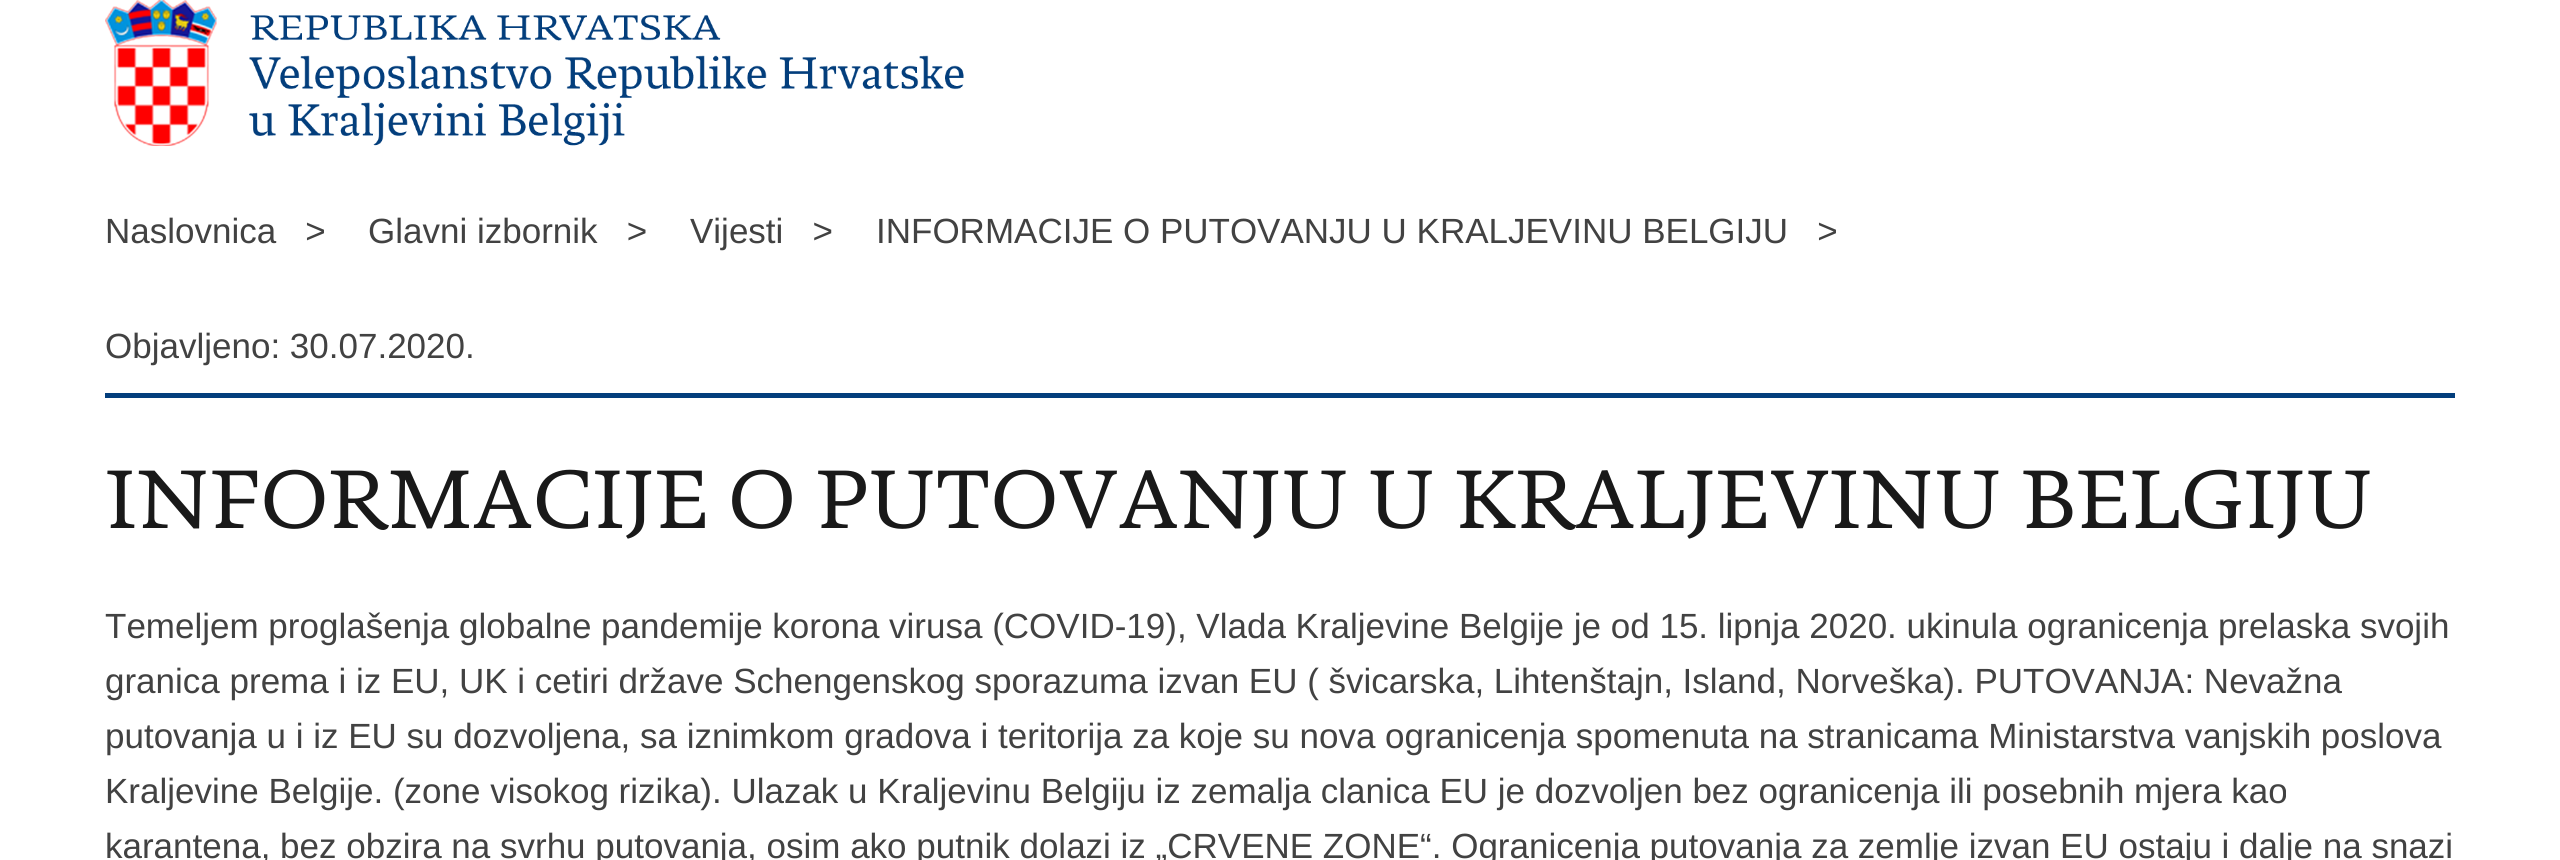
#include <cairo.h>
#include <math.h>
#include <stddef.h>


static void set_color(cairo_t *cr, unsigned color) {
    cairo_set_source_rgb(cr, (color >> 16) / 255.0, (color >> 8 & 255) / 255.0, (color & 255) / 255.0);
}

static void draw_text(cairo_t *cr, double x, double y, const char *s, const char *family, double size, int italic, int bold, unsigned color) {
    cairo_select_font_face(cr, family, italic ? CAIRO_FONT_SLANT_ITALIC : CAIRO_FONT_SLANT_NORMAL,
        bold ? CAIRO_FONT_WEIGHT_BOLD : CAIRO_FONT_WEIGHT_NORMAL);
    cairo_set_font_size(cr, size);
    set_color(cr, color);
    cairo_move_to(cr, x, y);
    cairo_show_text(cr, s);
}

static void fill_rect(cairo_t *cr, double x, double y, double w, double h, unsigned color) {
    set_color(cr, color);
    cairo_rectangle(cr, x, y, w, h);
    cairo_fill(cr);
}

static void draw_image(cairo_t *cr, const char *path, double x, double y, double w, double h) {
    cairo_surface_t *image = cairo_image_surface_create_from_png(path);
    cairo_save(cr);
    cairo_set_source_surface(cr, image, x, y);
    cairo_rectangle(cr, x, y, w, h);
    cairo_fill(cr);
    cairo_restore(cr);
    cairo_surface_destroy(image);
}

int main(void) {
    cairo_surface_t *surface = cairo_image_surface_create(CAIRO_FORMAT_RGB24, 2560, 860);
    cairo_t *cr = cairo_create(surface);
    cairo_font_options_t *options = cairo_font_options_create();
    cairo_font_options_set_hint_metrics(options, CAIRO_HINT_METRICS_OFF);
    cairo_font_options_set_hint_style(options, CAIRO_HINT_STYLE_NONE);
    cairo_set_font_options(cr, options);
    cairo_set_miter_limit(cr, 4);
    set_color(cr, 0xFFFFFF);
    cairo_paint(cr);
    draw_image(cr, "assets/img1.png", 105, 0, 859, 146);
    draw_text(cr, 105, 243, "Naslovnica   >", "Liberation Sans", 35, 0, 0, 0x424242);
    draw_text(cr, 368, 243, "Glavni izbornik   >", "Liberation Sans", 35, 0, 0, 0x424242);
    draw_text(cr, 690, 243, "Vijesti   >", "Liberation Sans", 35, 0, 0, 0x424242);
    draw_text(cr, 876, 243, "INFORMACIJE O PUTOVANJU U KRALJEVINU BELGIJU   >", "Liberation Sans", 35, 0, 0, 0x424242);
    fill_rect(cr, 105, 393, 2350, 5, 0x033E7C);
    draw_text(cr, 105, 358, "Objavljeno: 30.07.2020.", "Liberation Sans", 35, 0, 0, 0x424242);
    draw_text(cr, 105, 528, "INFORMACIJE O PUTOVANJU U KRALJEVINU BELGIJU", "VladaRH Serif", 87.5, 0, 0, 0x191919);
    draw_text(cr, 105, 638, "Temeljem proglašenja globalne pandemije korona virusa (COVID-19), Vlada Kraljevine Belgije je od 15. lipnja 2020. ukinula ogranicenja prelaska svojih", "Liberation Sans", 35, 0, 0, 0x424242);
    draw_text(cr, 105, 693, "granica prema i iz EU, UK i cetiri države Schengenskog sporazuma izvan EU ( švicarska, Lihtenštajn, Island, Norveška). PUTOVANJA: Nevažna", "Liberation Sans", 35, 0, 0, 0x424242);
    draw_text(cr, 105, 748, "putovanja u i iz EU su dozvoljena, sa iznimkom gradova i teritorija za koje su nova ogranicenja spomenuta na stranicama Ministarstva vanjskih poslova", "Liberation Sans", 35, 0, 0, 0x424242);
    draw_text(cr, 105, 803, "Kraljevine Belgije. (zone visokog rizika). Ulazak u Kraljevinu Belgiju iz zemalja clanica EU je dozvoljen bez ogranicenja ili posebnih mjera kao", "Liberation Sans", 35, 0, 0, 0x424242);
    draw_text(cr, 105, 858, "karantena, bez obzira na svrhu putovanja, osim ako putnik dolazi iz „CRVENE ZONE“. Ogranicenja putovanja za zemlje izvan EU ostaju i dalje na snazi", "Liberation Sans", 35, 0, 0, 0x424242);
    cairo_surface_write_to_png(surface, "output.png");
    cairo_font_options_destroy(options);
    cairo_destroy(cr);
    cairo_surface_destroy(surface);
    return 0;
}
